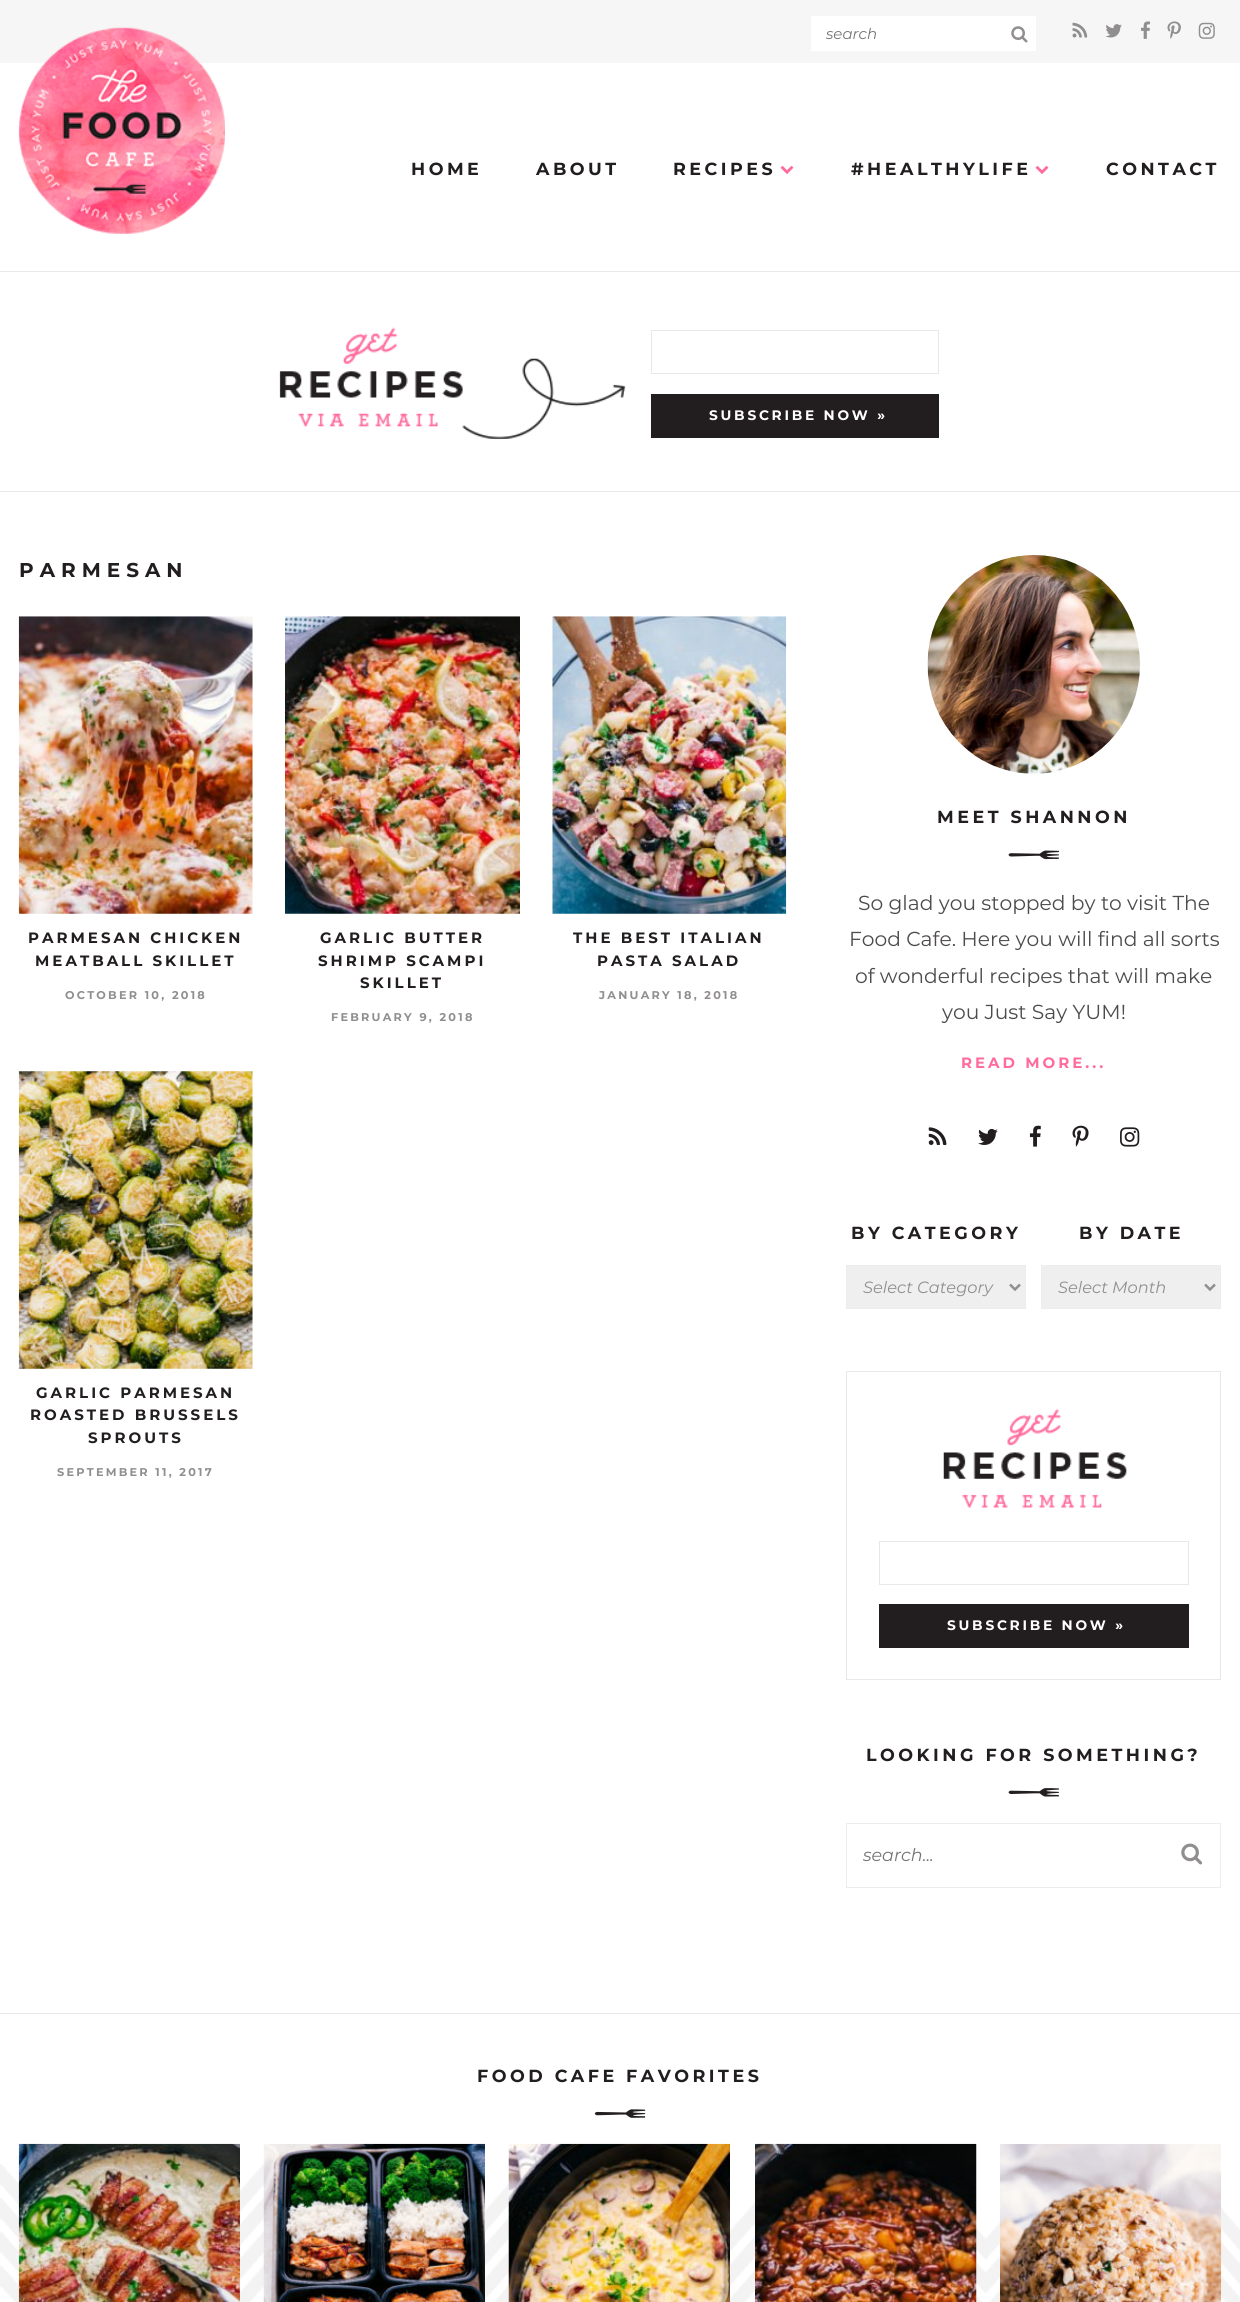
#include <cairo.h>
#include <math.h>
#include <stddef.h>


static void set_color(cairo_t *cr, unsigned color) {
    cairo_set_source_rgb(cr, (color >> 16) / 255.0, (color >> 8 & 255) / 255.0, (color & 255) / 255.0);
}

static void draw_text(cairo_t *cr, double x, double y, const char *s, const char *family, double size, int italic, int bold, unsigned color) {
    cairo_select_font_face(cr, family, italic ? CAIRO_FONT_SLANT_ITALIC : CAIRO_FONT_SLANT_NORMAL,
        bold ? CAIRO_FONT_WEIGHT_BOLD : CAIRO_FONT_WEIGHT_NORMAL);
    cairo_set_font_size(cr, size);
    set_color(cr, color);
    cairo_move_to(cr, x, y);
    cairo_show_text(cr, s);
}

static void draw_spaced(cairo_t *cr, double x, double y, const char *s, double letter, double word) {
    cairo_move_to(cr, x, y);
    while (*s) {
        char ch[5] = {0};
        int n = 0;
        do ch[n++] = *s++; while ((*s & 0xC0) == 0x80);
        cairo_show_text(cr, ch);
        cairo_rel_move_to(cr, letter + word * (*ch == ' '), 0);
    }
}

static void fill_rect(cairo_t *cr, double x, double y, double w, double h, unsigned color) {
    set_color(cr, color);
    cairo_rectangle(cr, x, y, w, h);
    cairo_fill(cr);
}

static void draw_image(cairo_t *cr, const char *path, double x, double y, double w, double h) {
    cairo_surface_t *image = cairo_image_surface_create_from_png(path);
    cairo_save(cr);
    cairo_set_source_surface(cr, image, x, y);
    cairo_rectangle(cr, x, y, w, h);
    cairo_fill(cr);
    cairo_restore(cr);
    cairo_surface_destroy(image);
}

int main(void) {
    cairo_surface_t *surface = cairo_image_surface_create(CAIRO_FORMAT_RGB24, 1240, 2302);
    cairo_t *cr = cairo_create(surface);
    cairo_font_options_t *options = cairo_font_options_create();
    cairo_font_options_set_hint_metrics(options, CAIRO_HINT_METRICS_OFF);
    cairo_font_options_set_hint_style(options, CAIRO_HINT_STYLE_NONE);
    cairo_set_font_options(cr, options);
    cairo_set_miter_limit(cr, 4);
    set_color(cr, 0xFFFFFF);
    cairo_paint(cr);
    fill_rect(cr, 0, 0, 1240, 63, 0xF6F6F6);
    fill_rect(cr, 811, 16, 225, 35, 0xFFFFFF);
    draw_text(cr, 826, 39, "search", "Montserrat Thin", 15, 1, 0, 0x757575);
    draw_image(cr, "assets/img1.png", 1011, 26, 17, 17);
    draw_image(cr, "assets/img2.png", 1072, 22, 16, 16);
    draw_image(cr, "assets/img3.png", 1105, 24, 17, 14);
    draw_image(cr, "assets/img4.png", 1141, 21, 9, 18);
    draw_image(cr, "assets/img5.png", 1167, 21, 14, 18);
    draw_image(cr, "assets/img6.png", 1198, 22, 17, 17);
    draw_image(cr, "assets/img7.png", 18, 27, 207, 207);
    cairo_select_font_face(cr, "Montserrat", CAIRO_FONT_SLANT_NORMAL, CAIRO_FONT_WEIGHT_BOLD);
    cairo_set_font_size(cr, 17.5);
    set_color(cr, 0x221E1F);
    draw_spaced(cr, 411, 175, "HOME", 3.5, 0);
    draw_spaced(cr, 536, 175, "ABOUT", 3.5, 0);
    draw_spaced(cr, 673, 175, "RECIPES", 3.5, 0);
    draw_image(cr, "assets/img8.png", 780, 166, 14, 8);
    draw_spaced(cr, 851, 175, "#HEALTHYLIFE", 3.5, 0);
    draw_image(cr, "assets/img8.png", 1035, 166, 14, 8);
    draw_spaced(cr, 1106, 175, "CONTACT", 3.5, 0);
    fill_rect(cr, 0, 271, 1240, 1, 0xE8E8E8);
    fill_rect(cr, 0, 491, 1240, 1, 0xE8E8E8);
    draw_image(cr, "assets/img9.png", 279, 327, 347, 113);
    cairo_rectangle(cr, 651.5, 330.5, 287, 43);
    cairo_set_line_width(cr, 1);
    cairo_stroke(cr);
    fill_rect(cr, 651, 394, 288, 44, 0x221E1F);
    cairo_set_font_size(cr, 13.75);
    set_color(cr, 0xFFFFFF);
    draw_spaced(cr, 709, 420, "SUBSCRIBE NOW »", 2.75, 0);
    cairo_set_font_size(cr, 20);
    set_color(cr, 0x221E1F);
    draw_spaced(cr, 19, 577, "PARMESAN", 6, 0);
    draw_image(cr, "assets/img10.png", 18, 616, 235, 298);
    cairo_set_font_size(cr, 15);
    draw_spaced(cr, 28, 943, "PARMESAN CHICKEN", 3, 0);
    draw_spaced(cr, 35, 966, "MEATBALL SKILLET", 3, 0);
    cairo_set_font_size(cr, 11.25);
    set_color(cr, 0x908E8F);
    draw_spaced(cr, 65, 999, "OCTOBER 10, 2018", 2.25, 0);
    draw_image(cr, "assets/img11.png", 285, 616, 235, 298);
    cairo_set_font_size(cr, 15);
    set_color(cr, 0x221E1F);
    draw_spaced(cr, 320, 943, "GARLIC BUTTER", 3, 0);
    draw_spaced(cr, 318, 966, "SHRIMP SCAMPI", 3, 0);
    draw_spaced(cr, 360, 988, "SKILLET", 3, 0);
    cairo_set_font_size(cr, 11.25);
    set_color(cr, 0x908E8F);
    draw_spaced(cr, 331, 1021, "FEBRUARY 9, 2018", 2.25, 0);
    draw_image(cr, "assets/img12.png", 552, 616, 235, 298);
    cairo_set_font_size(cr, 15);
    set_color(cr, 0x221E1F);
    draw_spaced(cr, 573, 943, "THE BEST ITALIAN", 3, 0);
    draw_spaced(cr, 597, 966, "PASTA SALAD", 3, 0);
    cairo_set_font_size(cr, 11.25);
    set_color(cr, 0x908E8F);
    draw_spaced(cr, 599, 999, "JANUARY 18, 2018", 2.25, 0);
    draw_image(cr, "assets/img13.png", 18, 1071, 235, 298);
    cairo_set_font_size(cr, 15);
    set_color(cr, 0x221E1F);
    draw_spaced(cr, 36, 1398, "GARLIC PARMESAN", 3, 0);
    draw_spaced(cr, 30, 1420, "ROASTED BRUSSELS", 3, 0);
    draw_spaced(cr, 88, 1443, "SPROUTS", 3, 0);
    cairo_set_font_size(cr, 11.25);
    set_color(cr, 0x908E8F);
    draw_spaced(cr, 57, 1476, "SEPTEMBER 11, 2017", 2.25, 0);
    draw_image(cr, "assets/img14.png", 927, 555, 213, 219);
    cairo_set_font_size(cr, 17.5);
    set_color(cr, 0x221E1F);
    draw_spaced(cr, 937, 823, "MEET SHANNON", 3.5, 0);
    draw_image(cr, "assets/img15.png", 1008, 850, 51, 10);
    draw_text(cr, 858, 910, "So glad you stopped by to visit The", "Montserrat", 20.25, 0, 0, 0x4E4B4C);
    draw_text(cr, 849, 946, "Food Cafe. Here you will find all sorts", "Montserrat", 20.25, 0, 0, 0x4E4B4C);
    draw_text(cr, 855, 983, "of wonderful recipes that will make", "Montserrat", 20.25, 0, 0, 0x4E4B4C);
    draw_text(cr, 942, 1019, "you Just Say YUM!", "Montserrat", 20.25, 0, 0, 0x4E4B4C);
    cairo_select_font_face(cr, "Montserrat", CAIRO_FONT_SLANT_NORMAL, CAIRO_FONT_WEIGHT_BOLD);
    cairo_set_font_size(cr, 15);
    set_color(cr, 0xFF6B9C);
    draw_spaced(cr, 961, 1068, "READ MORE...", 3, 0);
    draw_image(cr, "assets/img16.png", 928, 1127, 19, 18);
    draw_image(cr, "assets/img17.png", 978, 1128, 20, 17);
    draw_image(cr, "assets/img18.png", 1029, 1125, 12, 22);
    draw_image(cr, "assets/img19.png", 1072, 1125, 17, 22);
    draw_image(cr, "assets/img20.png", 1120, 1127, 20, 20);
    cairo_set_font_size(cr, 17.5);
    set_color(cr, 0x221E1F);
    draw_spaced(cr, 851, 1239, "BY CATEGORY", 3.5, 0);
    set_color(cr, 0xEFEFEF);
    cairo_rectangle(cr, 846.5, 1265.5, 179, 43);
    cairo_fill_preserve(cr);
    set_color(cr, 0xEDEDED);
    cairo_stroke(cr);
    cairo_new_path(cr);
    cairo_move_to(cr, 1010, 1284.5);
    cairo_line_to(cr, 1015, 1289.5);
    cairo_line_to(cr, 1020, 1284.5);
    set_color(cr, 0x908E8F);
    cairo_set_line_width(cr, 2.5);
    cairo_stroke(cr);
    draw_text(cr, 863, 1293, "Select Category", "Montserrat Thin", 16.25, 1, 0, 0x908E8F);
    cairo_select_font_face(cr, "Montserrat", CAIRO_FONT_SLANT_NORMAL, CAIRO_FONT_WEIGHT_BOLD);
    cairo_set_font_size(cr, 17.5);
    set_color(cr, 0x221E1F);
    draw_spaced(cr, 1079, 1239, "BY DATE", 3.5, 0);
    set_color(cr, 0xEFEFEF);
    cairo_rectangle(cr, 1041.5, 1265.5, 179, 43);
    cairo_fill_preserve(cr);
    set_color(cr, 0xEDEDED);
    cairo_set_line_width(cr, 1);
    cairo_stroke(cr);
    cairo_new_path(cr);
    cairo_move_to(cr, 1205, 1284.5);
    cairo_line_to(cr, 1210, 1289.5);
    cairo_line_to(cr, 1215, 1284.5);
    set_color(cr, 0x908E8F);
    cairo_set_line_width(cr, 2.5);
    cairo_stroke(cr);
    draw_text(cr, 1058, 1293, "Select Month", "Montserrat Thin", 16.25, 1, 0, 0x908E8F);
    cairo_rectangle(cr, 846.5, 1371.5, 374, 308);
    set_color(cr, 0xE8E8E8);
    cairo_set_line_width(cr, 1);
    cairo_stroke(cr);
    draw_image(cr, "assets/img21.png", 943, 1408, 184, 100);
    cairo_rectangle(cr, 879.5, 1541.5, 309, 43);
    cairo_stroke(cr);
    fill_rect(cr, 879, 1604, 310, 44, 0x221E1F);
    cairo_select_font_face(cr, "Montserrat", CAIRO_FONT_SLANT_NORMAL, CAIRO_FONT_WEIGHT_BOLD);
    cairo_set_font_size(cr, 13.75);
    set_color(cr, 0xFFFFFF);
    draw_spaced(cr, 947, 1630, "SUBSCRIBE NOW »", 2.75, 0);
    cairo_set_font_size(cr, 17.5);
    set_color(cr, 0x221E1F);
    draw_spaced(cr, 866, 1761, "LOOKING FOR SOMETHING?", 3.5, 0);
    draw_image(cr, "assets/img22.png", 1008, 1788, 51, 9);
    cairo_rectangle(cr, 846.5, 1823.5, 374, 64);
    set_color(cr, 0xEDEDED);
    cairo_stroke(cr);
    draw_text(cr, 863, 1861, "search...", "Montserrat Thin", 17.5, 1, 0, 0x757575);
    draw_image(cr, "assets/img23.png", 1181, 1843, 22, 22);
    draw_image(cr, "assets/img24.png", 0, 2164, 1240, 138);
    fill_rect(cr, 0, 2013, 1240, 1, 0xE8E8E8);
    cairo_select_font_face(cr, "Montserrat", CAIRO_FONT_SLANT_NORMAL, CAIRO_FONT_WEIGHT_BOLD);
    set_color(cr, 0x221E1F);
    draw_spaced(cr, 477, 2082, "FOOD CAFE FAVORITES", 3.5, 0);
    draw_image(cr, "assets/img25.png", 594, 2109, 52, 9);
    draw_image(cr, "assets/img26.png", 18, 2143, 222, 159);
    draw_image(cr, "assets/img27.png", 263, 2143, 222, 159);
    draw_image(cr, "assets/img28.png", 508, 2143, 222, 159);
    draw_image(cr, "assets/img29.png", 755, 2143, 222, 159);
    draw_image(cr, "assets/img30.png", 1000, 2144, 222, 158);
    cairo_surface_write_to_png(surface, "output.png");
    cairo_font_options_destroy(options);
    cairo_destroy(cr);
    cairo_surface_destroy(surface);
    return 0;
}
